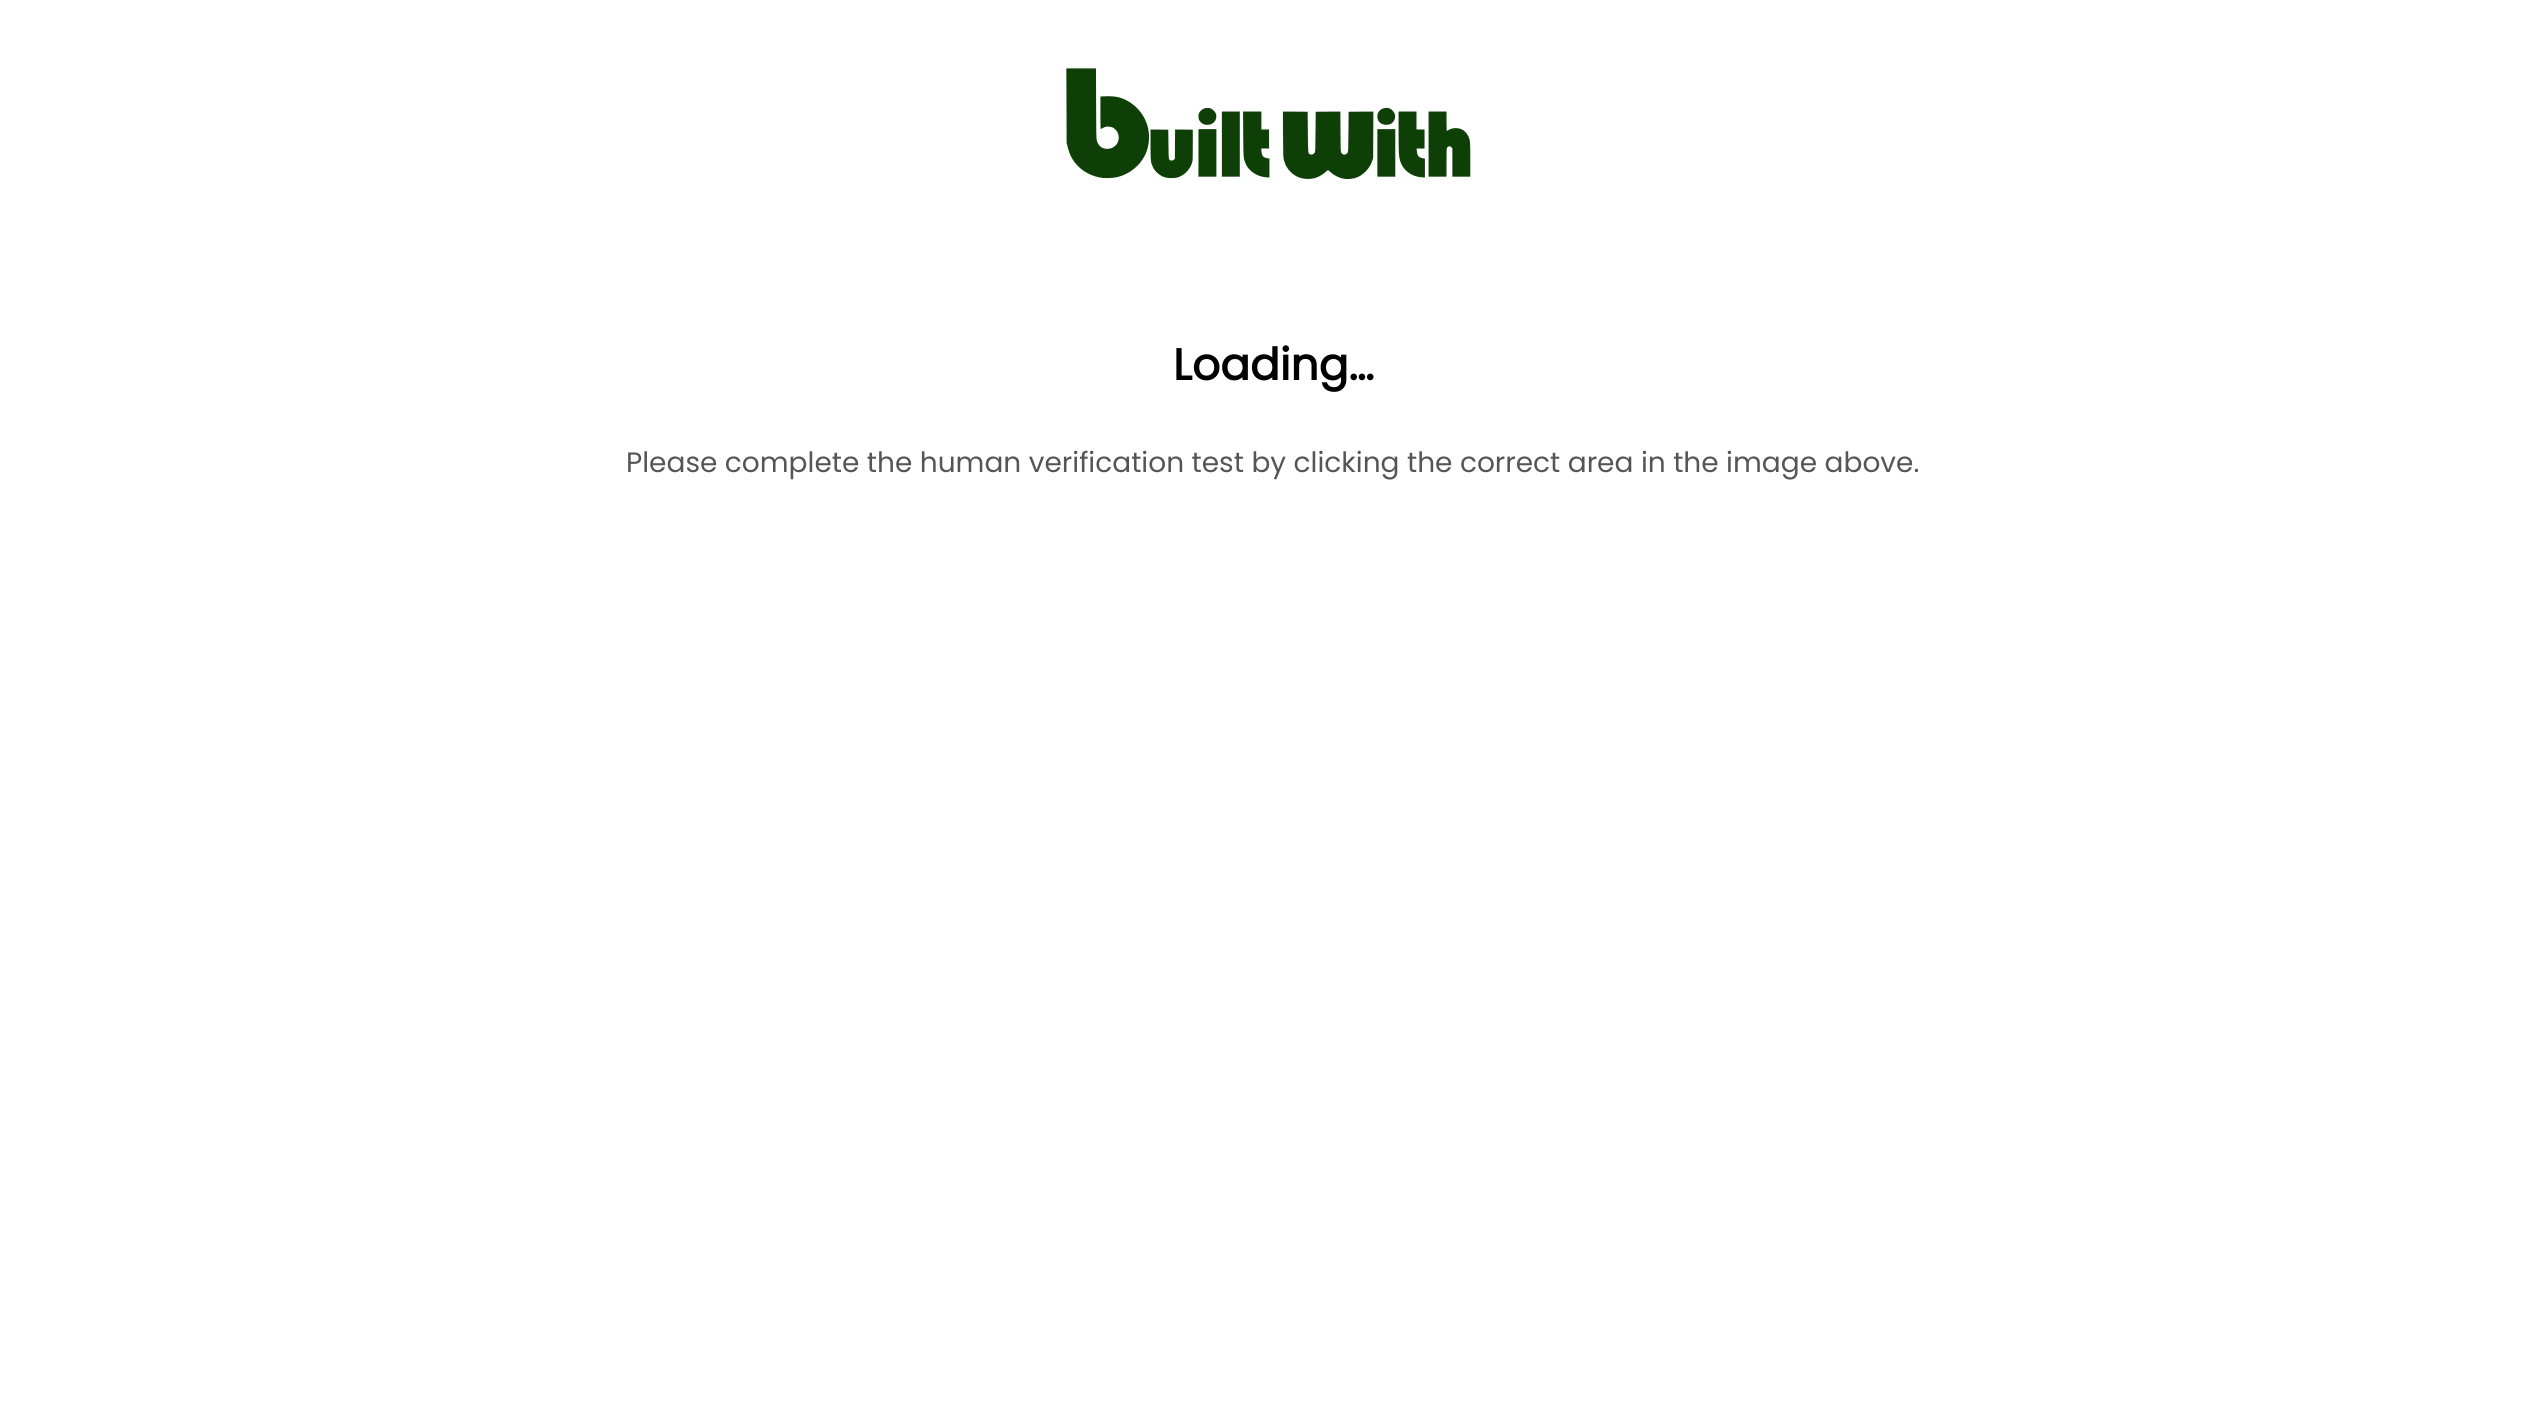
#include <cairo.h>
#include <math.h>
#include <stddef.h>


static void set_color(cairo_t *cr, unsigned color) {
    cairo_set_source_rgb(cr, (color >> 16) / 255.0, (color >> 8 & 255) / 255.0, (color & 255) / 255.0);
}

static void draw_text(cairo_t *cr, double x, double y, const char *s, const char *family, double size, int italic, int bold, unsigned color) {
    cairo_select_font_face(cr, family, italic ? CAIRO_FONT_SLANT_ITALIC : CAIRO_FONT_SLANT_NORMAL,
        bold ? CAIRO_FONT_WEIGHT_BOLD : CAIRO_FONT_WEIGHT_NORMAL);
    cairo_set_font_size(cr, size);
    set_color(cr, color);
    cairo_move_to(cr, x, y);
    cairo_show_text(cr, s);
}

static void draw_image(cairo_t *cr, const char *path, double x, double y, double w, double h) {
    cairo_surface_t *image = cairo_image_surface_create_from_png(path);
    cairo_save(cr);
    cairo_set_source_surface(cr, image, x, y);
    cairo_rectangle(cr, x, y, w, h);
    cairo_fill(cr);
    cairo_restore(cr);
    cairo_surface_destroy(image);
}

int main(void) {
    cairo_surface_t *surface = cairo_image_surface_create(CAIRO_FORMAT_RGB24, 2545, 1412);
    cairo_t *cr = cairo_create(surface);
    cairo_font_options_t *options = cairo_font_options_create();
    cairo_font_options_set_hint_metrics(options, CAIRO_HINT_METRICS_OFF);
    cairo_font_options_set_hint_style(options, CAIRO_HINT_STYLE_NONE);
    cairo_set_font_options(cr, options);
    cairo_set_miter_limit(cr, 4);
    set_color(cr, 0xFFFFFF);
    cairo_paint(cr);
    draw_image(cr, "assets/img1.png", 1066, 68, 405, 112);
    draw_text(cr, 1173, 380, "Loading…", "Poppins", 44, 0, 1, 0x000000);
    draw_text(cr, 626, 472, "Please complete the human verification test by clicking the correct area in the image above.", "Poppins", 28, 0, 0, 0x555555);
    cairo_surface_write_to_png(surface, "output.png");
    cairo_font_options_destroy(options);
    cairo_destroy(cr);
    cairo_surface_destroy(surface);
    return 0;
}
